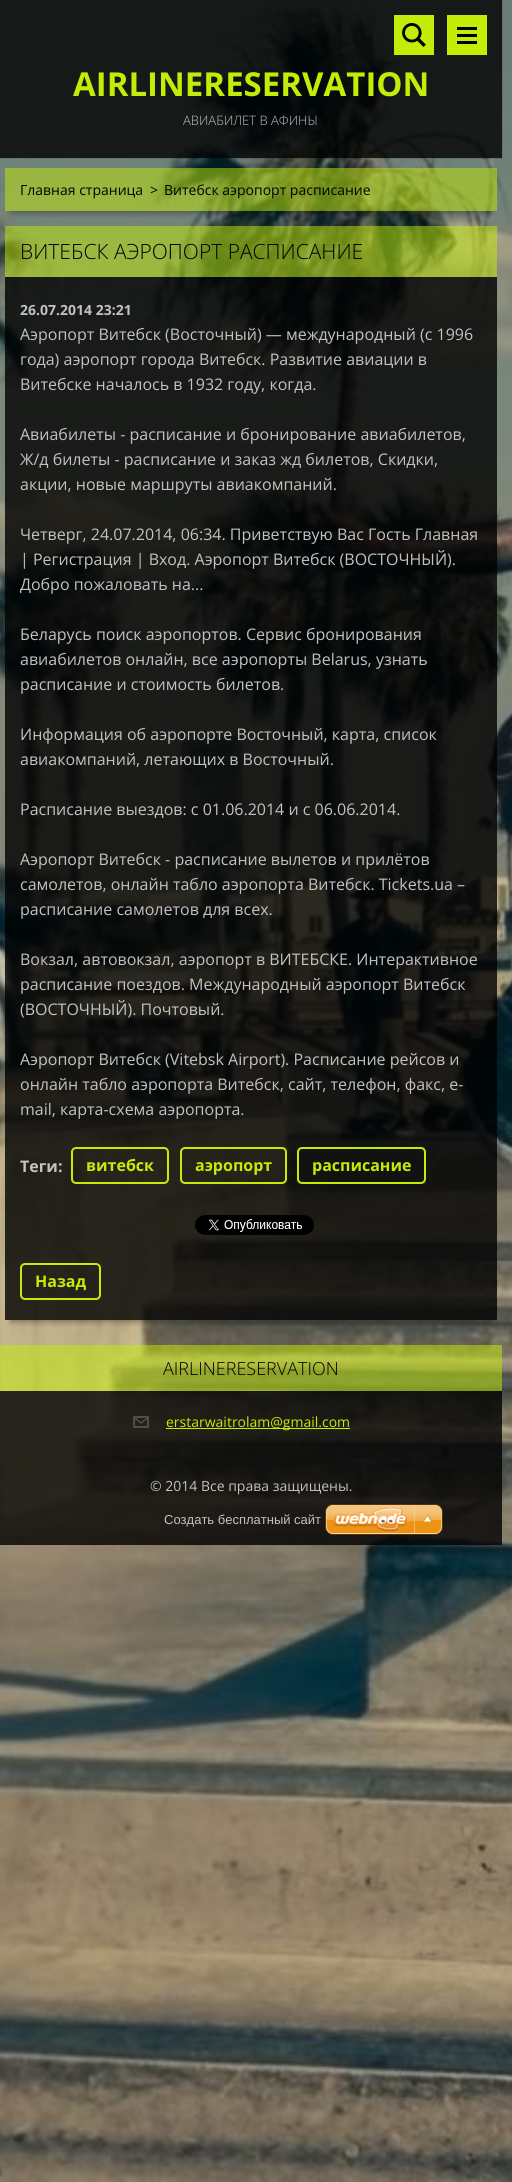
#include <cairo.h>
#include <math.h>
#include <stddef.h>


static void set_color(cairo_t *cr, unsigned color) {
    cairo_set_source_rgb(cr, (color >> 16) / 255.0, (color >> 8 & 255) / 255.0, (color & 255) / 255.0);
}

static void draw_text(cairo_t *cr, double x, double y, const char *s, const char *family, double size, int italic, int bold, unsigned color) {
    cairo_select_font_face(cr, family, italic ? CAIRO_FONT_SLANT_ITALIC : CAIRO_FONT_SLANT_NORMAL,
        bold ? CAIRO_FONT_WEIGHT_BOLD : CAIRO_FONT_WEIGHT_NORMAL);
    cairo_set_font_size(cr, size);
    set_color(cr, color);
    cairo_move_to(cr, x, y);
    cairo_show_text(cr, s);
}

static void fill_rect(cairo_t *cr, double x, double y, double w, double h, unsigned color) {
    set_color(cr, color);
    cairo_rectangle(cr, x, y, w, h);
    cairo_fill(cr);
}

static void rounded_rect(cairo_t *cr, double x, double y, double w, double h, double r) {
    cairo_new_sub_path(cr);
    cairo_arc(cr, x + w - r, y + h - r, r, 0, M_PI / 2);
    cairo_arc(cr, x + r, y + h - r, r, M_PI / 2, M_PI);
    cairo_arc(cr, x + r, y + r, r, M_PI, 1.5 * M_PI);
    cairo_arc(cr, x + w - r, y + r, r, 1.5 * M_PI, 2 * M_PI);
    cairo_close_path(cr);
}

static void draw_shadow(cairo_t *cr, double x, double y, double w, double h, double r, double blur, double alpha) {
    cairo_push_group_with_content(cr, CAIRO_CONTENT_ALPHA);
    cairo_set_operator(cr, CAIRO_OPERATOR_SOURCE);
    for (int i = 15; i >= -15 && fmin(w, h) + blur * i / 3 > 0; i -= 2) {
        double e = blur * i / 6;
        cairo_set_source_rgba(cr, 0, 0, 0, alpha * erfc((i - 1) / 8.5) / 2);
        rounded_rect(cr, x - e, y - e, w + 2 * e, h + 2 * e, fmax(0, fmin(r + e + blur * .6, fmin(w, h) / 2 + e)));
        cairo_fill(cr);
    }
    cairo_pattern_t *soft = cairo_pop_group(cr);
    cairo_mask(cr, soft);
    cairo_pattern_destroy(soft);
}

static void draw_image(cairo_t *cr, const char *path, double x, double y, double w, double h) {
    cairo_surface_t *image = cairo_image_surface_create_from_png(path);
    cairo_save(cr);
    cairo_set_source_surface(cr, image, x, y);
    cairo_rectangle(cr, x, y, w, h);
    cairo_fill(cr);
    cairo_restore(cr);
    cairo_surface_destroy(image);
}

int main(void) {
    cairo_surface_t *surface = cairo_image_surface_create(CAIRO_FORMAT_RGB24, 512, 2182);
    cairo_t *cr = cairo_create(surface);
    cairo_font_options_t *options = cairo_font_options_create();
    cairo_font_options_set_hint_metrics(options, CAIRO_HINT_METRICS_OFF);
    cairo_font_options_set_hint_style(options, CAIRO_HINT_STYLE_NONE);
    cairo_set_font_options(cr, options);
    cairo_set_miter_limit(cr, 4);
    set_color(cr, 0xFFFFFF);
    cairo_paint(cr);
    draw_image(cr, "assets/img1.png", 0, 0, 512, 2182);
    cairo_rectangle(cr, -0.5, -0.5, 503, 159);
    cairo_set_source_rgba(cr, 0, 0, 0, 0.1);
    cairo_set_line_width(cr, 1);
    cairo_stroke(cr);
    cairo_set_source_rgba(cr, 0, 0, 0, 0.8);
    cairo_rectangle(cr, 0, 0, 502, 108);
    cairo_fill(cr);
    fill_rect(cr, 394, 15, 40, 40, 0xC3EC06);
    draw_image(cr, "assets/img2.png", 402, 23, 24, 24);
    fill_rect(cr, 447, 15, 40, 40, 0xC3EC06);
    fill_rect(cr, 457, 27, 20, 3, 0x000000);
    fill_rect(cr, 457, 34, 20, 3, 0x000000);
    fill_rect(cr, 457, 41, 20, 3, 0x000000);
    draw_text(cr, 73, 96, "AIRLINERESERVATION", "Open Sans", 33, 0, 1, 0xC3EC06);
    cairo_set_source_rgba(cr, 0, 0, 0, 0.8);
    cairo_rectangle(cr, 0, 108, 502, 50);
    cairo_fill(cr);
    draw_text(cr, 183, 125, "АВИАБИЛЕТ В АФИНЫ", "Open Sans Light", 13, 0, 0, 0xC2C2C2);
    cairo_save(cr);
    cairo_rectangle(cr, 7, 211, 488, 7);
    cairo_clip(cr);
    set_color(cr, 0x000000);
    draw_shadow(cr, 11, 182, 480, 31, 0, 3, 0.35);
    cairo_restore(cr);
    cairo_set_source_rgba(cr, 0.765, 0.925, 0.024, 0.5);
    cairo_rectangle(cr, 5, 168, 492, 43);
    cairo_fill(cr);
    draw_text(cr, 20, 195, "Главная страница", "Open Sans", 14, 0, 0, 0x000000);
    draw_text(cr, 150, 195, ">", "Open Sans", 14, 0, 0, 0x000000);
    draw_text(cr, 164, 195, "Витебск аэропорт расписание", "Open Sans", 14, 0, 0, 0x000000);
    cairo_save(cr);
    cairo_rectangle(cr, 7, 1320, 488, 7);
    cairo_clip(cr);
    set_color(cr, 0x000000);
    draw_shadow(cr, 11, 240, 480, 1082, 0, 3, 0.35);
    cairo_restore(cr);
    cairo_set_source_rgba(cr, 0.765, 0.925, 0.024, 0.5);
    cairo_rectangle(cr, 5, 226, 492, 51);
    cairo_fill(cr);
    draw_text(cr, 20, 259, "ВИТЕБСК АЭРОПОРТ РАСПИСАНИЕ", "Open Sans Light", 21, 0, 0, 0x000000);
    cairo_set_source_rgba(cr, 0, 0, 0, 0.8);
    cairo_rectangle(cr, 5, 277, 492, 870);
    cairo_fill(cr);
    draw_text(cr, 20, 315, "26.07.2014 23:21", "Open Sans", 14, 0, 1, 0xC2C2C2);
    draw_text(cr, 20, 340, "Аэропорт Витебск (Восточный) — международный (с 1996", "Open Sans", 16, 0, 0, 0xC2C2C2);
    draw_text(cr, 20, 365, "года) аэропорт города Витебск. Развитие авиации в", "Open Sans", 16, 0, 0, 0xC2C2C2);
    draw_text(cr, 20, 390, "Витебске началось в 1932 году, когда.", "Open Sans", 16, 0, 0, 0xC2C2C2);
    draw_text(cr, 20, 440, "Авиабилеты - расписание и бронирование авиабилетов,", "Open Sans", 16, 0, 0, 0xC2C2C2);
    draw_text(cr, 20, 465, "Ж/д билеты - расписание и заказ жд билетов, Скидки,", "Open Sans", 16, 0, 0, 0xC2C2C2);
    draw_text(cr, 20, 490, "акции, новые маршруты авиакомпаний.", "Open Sans", 16, 0, 0, 0xC2C2C2);
    draw_text(cr, 20, 540, "Четверг, 24.07.2014, 06:34. Приветствую Вас Гость Главная", "Open Sans", 16, 0, 0, 0xC2C2C2);
    draw_text(cr, 20, 565, "| Регистрация | Вход. Аэропорт Витебск (ВОСТОЧНЫЙ).", "Open Sans", 16, 0, 0, 0xC2C2C2);
    draw_text(cr, 20, 590, "Добро пожаловать на...", "Open Sans", 16, 0, 0, 0xC2C2C2);
    draw_text(cr, 20, 640, "Беларусь поиск аэропортов. Сервис бронирования", "Open Sans", 16, 0, 0, 0xC2C2C2);
    draw_text(cr, 20, 665, "авиабилетов онлайн, все аэропорты Belarus, узнать", "Open Sans", 16, 0, 0, 0xC2C2C2);
    draw_text(cr, 20, 690, "расписание и стоимость билетов.", "Open Sans", 16, 0, 0, 0xC2C2C2);
    draw_text(cr, 20, 740, "Информация об аэропорте Восточный, карта, список", "Open Sans", 16, 0, 0, 0xC2C2C2);
    draw_text(cr, 20, 765, "авиакомпаний, летающих в Восточный.", "Open Sans", 16, 0, 0, 0xC2C2C2);
    draw_text(cr, 20, 815, "Расписание выездов: с 01.06.2014 и с 06.06.2014.", "Open Sans", 16, 0, 0, 0xC2C2C2);
    draw_text(cr, 20, 865, "Аэропорт Витебск - расписание вылетов и прилётов", "Open Sans", 16, 0, 0, 0xC2C2C2);
    draw_text(cr, 20, 890, "самолетов, онлайн табло аэропорта Витебск. Tickets.ua –", "Open Sans", 16, 0, 0, 0xC2C2C2);
    draw_text(cr, 20, 915, "расписание самолетов для всех.", "Open Sans", 16, 0, 0, 0xC2C2C2);
    draw_text(cr, 20, 965, "Вокзал, автовокзал, аэропорт в ВИТЕБСКЕ. Интерактивное", "Open Sans", 16, 0, 0, 0xC2C2C2);
    draw_text(cr, 20, 990, "расписание поездов. Международный аэропорт Витебск", "Open Sans", 16, 0, 0, 0xC2C2C2);
    draw_text(cr, 20, 1015, "(ВОСТОЧНЫЙ). Почтовый.", "Open Sans", 16, 0, 0, 0xC2C2C2);
    draw_text(cr, 20, 1065, "Аэропорт Витебск (Vitebsk Airport). Расписание рейсов и", "Open Sans", 16, 0, 0, 0xC2C2C2);
    draw_text(cr, 20, 1090, "онлайн табло аэропорта Витебск, сайт, телефон, факс, e-", "Open Sans", 16, 0, 0, 0xC2C2C2);
    draw_text(cr, 20, 1115, "mail, карта-схема аэропорта.", "Open Sans", 16, 0, 0, 0xC2C2C2);
    cairo_set_source_rgba(cr, 0, 0, 0, 0.8);
    cairo_rectangle(cr, 5, 1147, 492, 173);
    cairo_fill(cr);
    draw_text(cr, 20, 1172, "Теги:", "Open Sans", 16, 0, 1, 0xC2C2C2);
    rounded_rect(cr, 72, 1148, 96, 35, 4);
    set_color(cr, 0xC3EC06);
    cairo_set_line_width(cr, 2);
    cairo_stroke(cr);
    draw_text(cr, 86, 1171, "витебск", "Open Sans", 16, 0, 1, 0xC3EC06);
    rounded_rect(cr, 181, 1148, 105, 35, 4);
    cairo_stroke(cr);
    draw_text(cr, 195, 1171, "аэропорт", "Open Sans", 16, 0, 1, 0xC3EC06);
    rounded_rect(cr, 298, 1148, 127, 35, 4);
    cairo_stroke(cr);
    draw_text(cr, 312, 1171, "расписание", "Open Sans", 16, 0, 1, 0xC3EC06);
    draw_image(cr, "assets/img3.png", 195, 1215, 119, 20);
    rounded_rect(cr, 21, 1264, 79, 35, 4);
    cairo_stroke(cr);
    draw_text(cr, 35, 1287, "Назад", "Open Sans", 16, 0, 1, 0xC3EC06);
    cairo_set_source_rgba(cr, 0.765, 0.925, 0.024, 0.5);
    cairo_rectangle(cr, 0, 1345, 502, 46);
    cairo_fill(cr);
    draw_text(cr, 163, 1375, "AIRLINERESERVATION", "Open Sans Light", 18, 0, 0, 0x000000);
    cairo_set_source_rgba(cr, 0, 0, 0, 0.8);
    cairo_rectangle(cr, 0, 1391, 502, 48);
    cairo_fill(cr);
    draw_image(cr, "assets/img4.png", 133, 1416, 16, 12);
    fill_rect(cr, 166, 1428, 184, 1, 0xC3EC06);
    draw_text(cr, 166, 1427, "erstarwaitrolam@gmail.com", "Open Sans", 14, 0, 0, 0xC3EC06);
    cairo_set_source_rgba(cr, 0, 0, 0, 0.8);
    cairo_rectangle(cr, 0, 1439, 502, 20);
    cairo_fill(cr);
    cairo_rectangle(cr, 0, 1459, 502, 48);
    cairo_fill(cr);
    draw_text(cr, 150, 1491, "© 2014 Все права защищены.", "Open Sans", 14, 0, 0, 0xC2C2C2);
    cairo_set_source_rgba(cr, 0, 0, 0, 0.8);
    cairo_rectangle(cr, 0, 1507, 502, 38);
    cairo_fill(cr);
    draw_text(cr, 164, 1524, "Создать бесплатный сайт", "Liberation Sans", 13, 0, 0, 0xC2C2C2);
    draw_image(cr, "assets/img5.png", 325, 1504, 118, 31);
    cairo_surface_write_to_png(surface, "output.png");
    cairo_font_options_destroy(options);
    cairo_destroy(cr);
    cairo_surface_destroy(surface);
    return 0;
}
